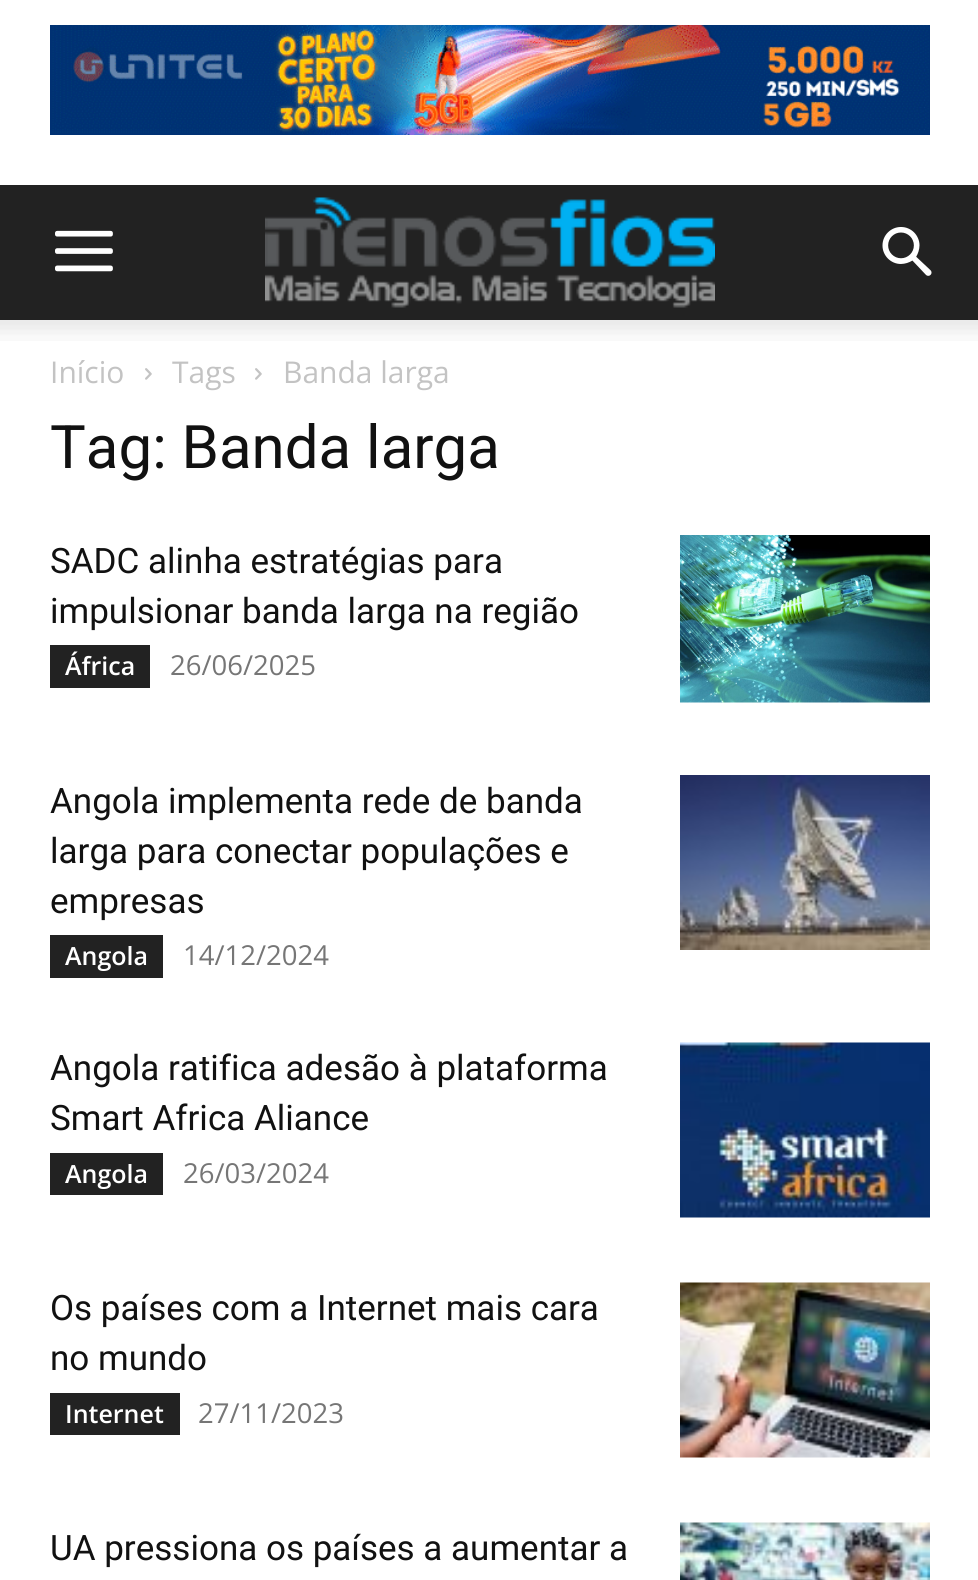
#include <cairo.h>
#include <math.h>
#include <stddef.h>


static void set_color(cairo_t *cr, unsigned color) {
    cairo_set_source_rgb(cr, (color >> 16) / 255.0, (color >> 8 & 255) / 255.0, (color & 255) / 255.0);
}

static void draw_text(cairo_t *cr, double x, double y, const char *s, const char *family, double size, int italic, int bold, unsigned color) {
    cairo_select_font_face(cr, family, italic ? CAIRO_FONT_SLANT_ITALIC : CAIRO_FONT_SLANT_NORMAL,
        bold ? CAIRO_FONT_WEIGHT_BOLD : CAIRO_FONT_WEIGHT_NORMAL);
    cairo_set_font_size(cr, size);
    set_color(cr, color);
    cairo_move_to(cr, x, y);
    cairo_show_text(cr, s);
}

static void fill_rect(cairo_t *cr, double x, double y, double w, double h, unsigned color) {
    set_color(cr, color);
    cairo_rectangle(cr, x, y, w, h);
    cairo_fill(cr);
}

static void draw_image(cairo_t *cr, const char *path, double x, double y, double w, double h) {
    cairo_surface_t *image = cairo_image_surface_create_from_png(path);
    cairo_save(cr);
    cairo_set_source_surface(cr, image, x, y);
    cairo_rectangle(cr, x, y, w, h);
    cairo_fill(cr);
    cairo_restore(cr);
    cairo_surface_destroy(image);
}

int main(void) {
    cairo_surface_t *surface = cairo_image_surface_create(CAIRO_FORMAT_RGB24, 978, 1580);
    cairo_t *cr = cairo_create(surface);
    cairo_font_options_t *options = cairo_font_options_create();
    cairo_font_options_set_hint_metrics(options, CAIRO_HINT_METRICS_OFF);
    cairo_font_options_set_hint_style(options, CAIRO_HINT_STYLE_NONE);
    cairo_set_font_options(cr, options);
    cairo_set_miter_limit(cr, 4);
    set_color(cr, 0xFFFFFF);
    cairo_paint(cr);
    draw_image(cr, "assets/img1.png", 50, 25, 880, 110);
    fill_rect(cr, 0, 185, 978, 135, 0x222222);
    draw_image(cr, "assets/img2.png", 55, 230, 58, 42);
    draw_image(cr, "assets/img3.png", 265, 197, 450, 111);
    draw_image(cr, "assets/img4.png", 882, 227, 50, 49);
    draw_image(cr, "assets/img5.png", 0, 320, 978, 21);
    draw_text(cr, 50, 383, "Início", "Open Sans", 30, 0, 0, 0xC3C3C3);
    draw_image(cr, "assets/img6.png", 145, 368, 7, 12);
    draw_text(cr, 172, 383, "Tags", "Open Sans", 30, 0, 0, 0xC3C3C3);
    draw_image(cr, "assets/img6.png", 255, 368, 7, 12);
    draw_text(cr, 283, 383, "Banda larga", "Open Sans", 30, 0, 0, 0xC3C3C3);
    draw_text(cr, 50, 468, "Tag: Banda larga", "Roboto", 60, 0, 0, 0x111111);
    draw_text(cr, 50, 573, "SADC alinha estratégias para", "Roboto", 35, 0, 0, 0x111111);
    draw_text(cr, 50, 623, "impulsionar banda larga na região", "Roboto", 35, 0, 0, 0x111111);
    fill_rect(cr, 50, 645, 100, 43, 0x222222);
    draw_text(cr, 65, 675, "África", "Open Sans SemiBold", 25, 0, 0, 0xFFFFFF);
    draw_text(cr, 170, 675, "26/06/2025", "Open Sans", 27.5, 0, 0, 0x767676);
    draw_image(cr, "assets/img7.png", 680, 535, 250, 168);
    draw_text(cr, 50, 813, "Angola implementa rede de banda", "Roboto", 35, 0, 0, 0x111111);
    draw_text(cr, 50, 863, "larga para conectar populações e", "Roboto", 35, 0, 0, 0x111111);
    draw_text(cr, 50, 913, "empresas", "Roboto", 35, 0, 0, 0x111111);
    fill_rect(cr, 50, 935, 113, 43, 0x222222);
    draw_text(cr, 65, 965, "Angola", "Open Sans SemiBold", 25, 0, 0, 0xFFFFFF);
    draw_text(cr, 183, 965, "14/12/2024", "Open Sans", 27.5, 0, 0, 0x767676);
    draw_image(cr, "assets/img8.png", 680, 775, 250, 175);
    draw_text(cr, 50, 1080, "Angola ratifica adesão à plataforma", "Roboto", 35, 0, 0, 0x111111);
    draw_text(cr, 50, 1130, "Smart Africa Aliance", "Roboto", 35, 0, 0, 0x111111);
    fill_rect(cr, 50, 1153, 113, 42, 0x222222);
    draw_text(cr, 65, 1183, "Angola", "Open Sans SemiBold", 25, 0, 0, 0xFFFFFF);
    draw_text(cr, 183, 1183, "26/03/2024", "Open Sans", 27.5, 0, 0, 0x767676);
    draw_image(cr, "assets/img9.png", 680, 1042, 250, 176);
    draw_text(cr, 50, 1320, "Os países com a Internet mais cara", "Roboto", 35, 0, 0, 0x111111);
    draw_text(cr, 50, 1370, "no mundo", "Roboto", 35, 0, 0, 0x111111);
    fill_rect(cr, 50, 1393, 130, 42, 0x222222);
    draw_text(cr, 65, 1423, "Internet", "Open Sans SemiBold", 25, 0, 0, 0xFFFFFF);
    draw_text(cr, 198, 1423, "27/11/2023", "Open Sans", 27.5, 0, 0, 0x767676);
    draw_image(cr, "assets/img10.png", 680, 1282, 250, 176);
    draw_text(cr, 50, 1560, "UA pressiona os países a aumentar a", "Roboto", 35, 0, 0, 0x111111);
    draw_image(cr, "assets/img11.png", 680, 1522, 250, 58);
    cairo_surface_write_to_png(surface, "output.png");
    cairo_font_options_destroy(options);
    cairo_destroy(cr);
    cairo_surface_destroy(surface);
    return 0;
}
